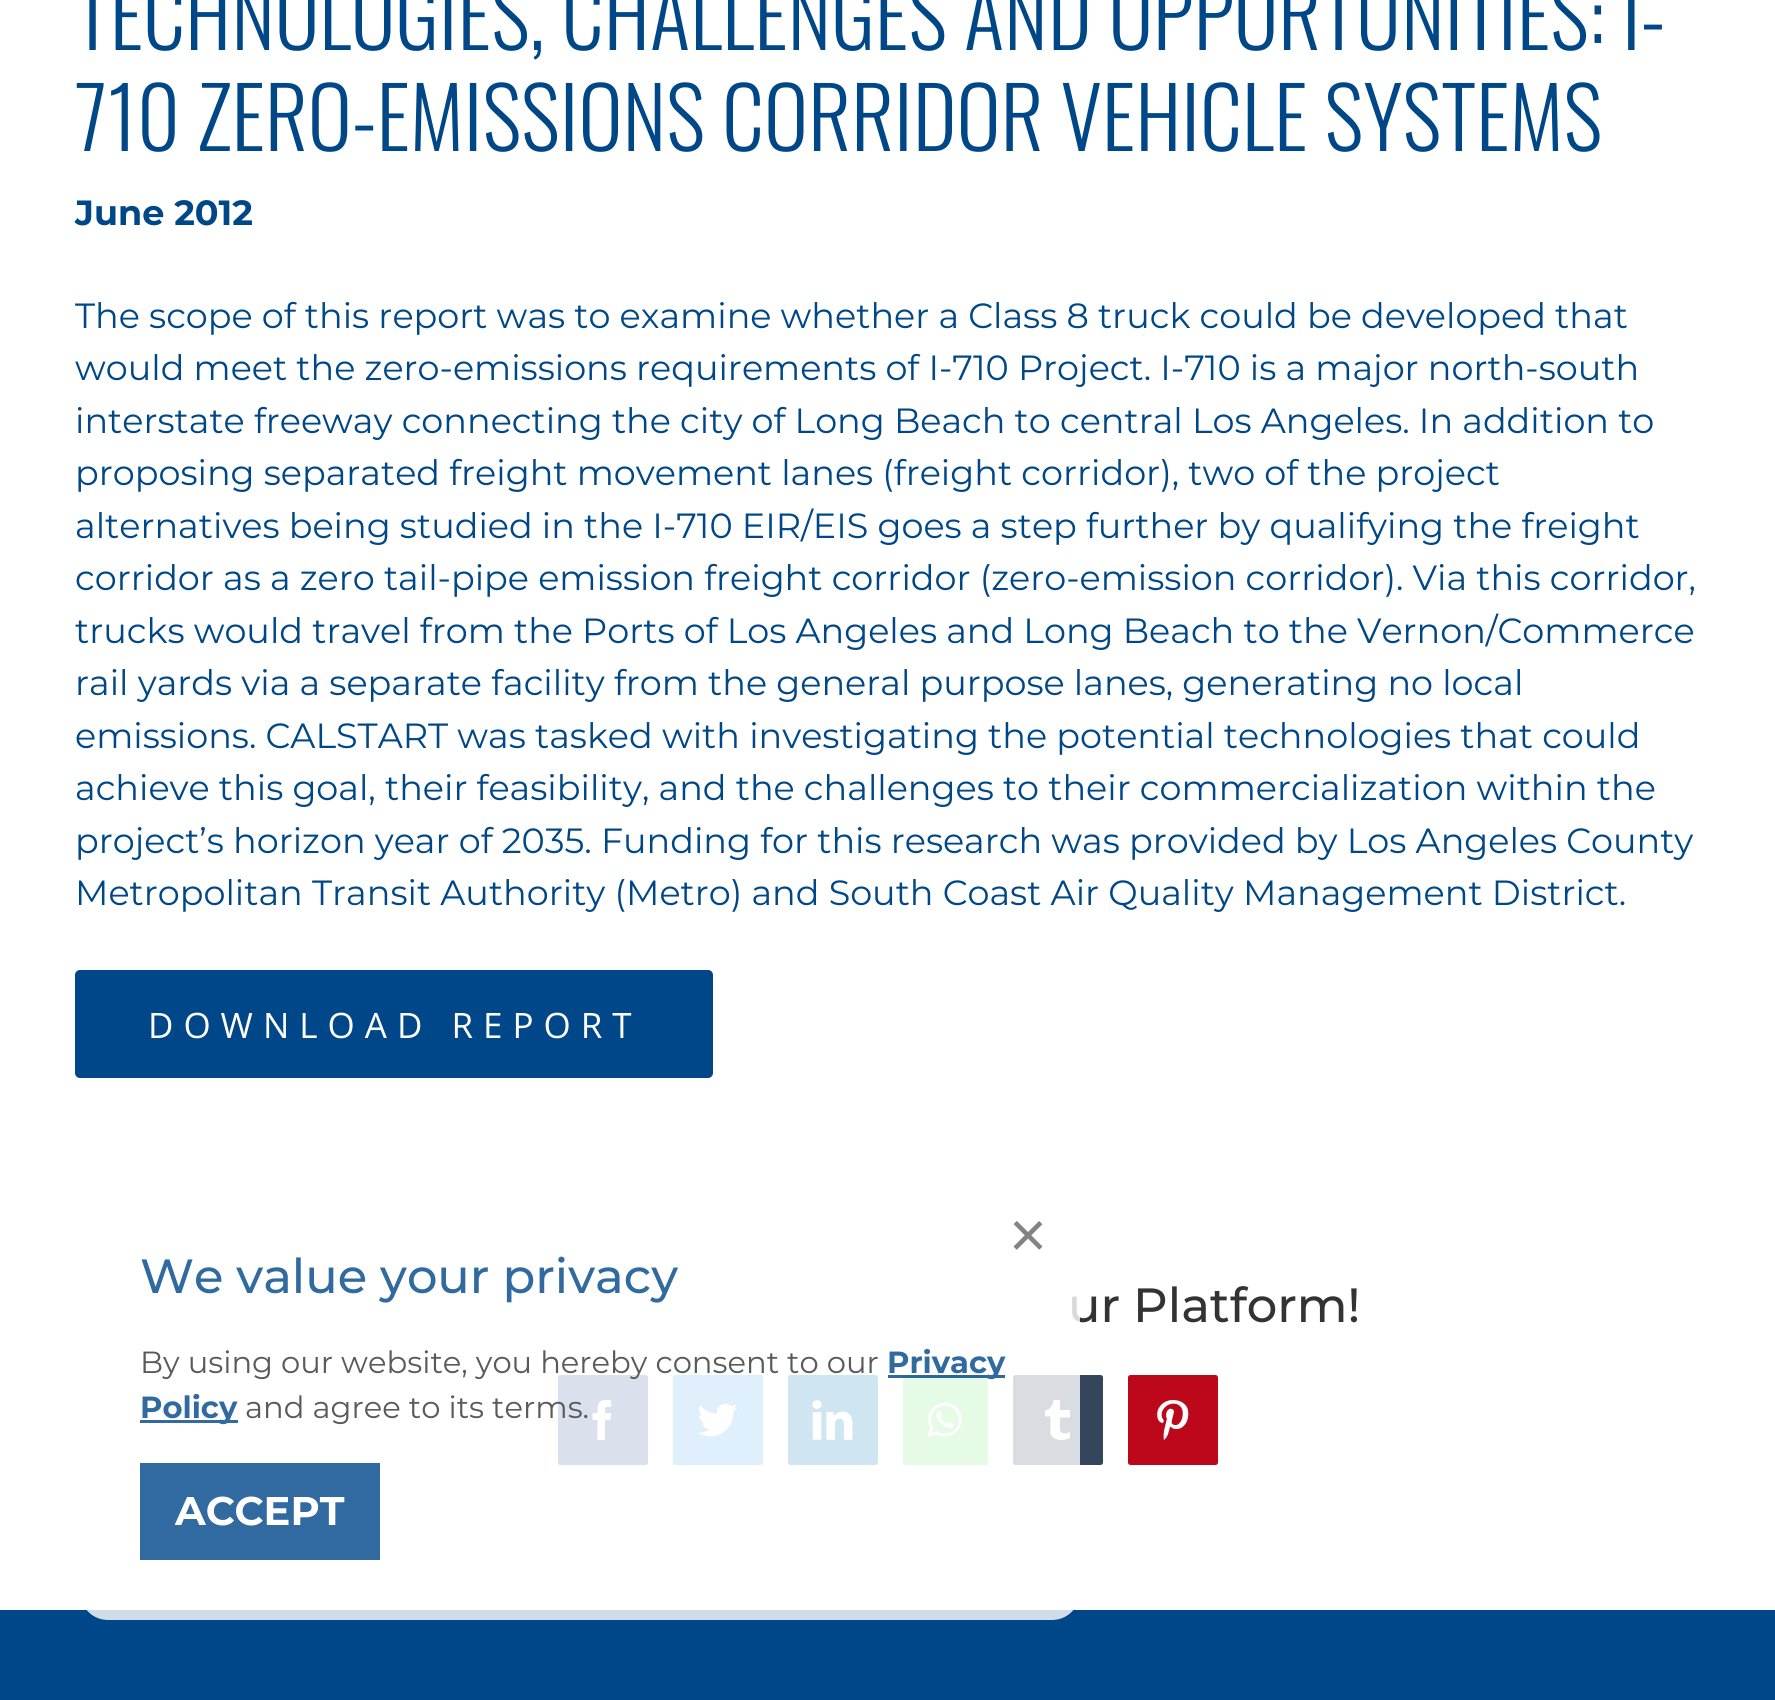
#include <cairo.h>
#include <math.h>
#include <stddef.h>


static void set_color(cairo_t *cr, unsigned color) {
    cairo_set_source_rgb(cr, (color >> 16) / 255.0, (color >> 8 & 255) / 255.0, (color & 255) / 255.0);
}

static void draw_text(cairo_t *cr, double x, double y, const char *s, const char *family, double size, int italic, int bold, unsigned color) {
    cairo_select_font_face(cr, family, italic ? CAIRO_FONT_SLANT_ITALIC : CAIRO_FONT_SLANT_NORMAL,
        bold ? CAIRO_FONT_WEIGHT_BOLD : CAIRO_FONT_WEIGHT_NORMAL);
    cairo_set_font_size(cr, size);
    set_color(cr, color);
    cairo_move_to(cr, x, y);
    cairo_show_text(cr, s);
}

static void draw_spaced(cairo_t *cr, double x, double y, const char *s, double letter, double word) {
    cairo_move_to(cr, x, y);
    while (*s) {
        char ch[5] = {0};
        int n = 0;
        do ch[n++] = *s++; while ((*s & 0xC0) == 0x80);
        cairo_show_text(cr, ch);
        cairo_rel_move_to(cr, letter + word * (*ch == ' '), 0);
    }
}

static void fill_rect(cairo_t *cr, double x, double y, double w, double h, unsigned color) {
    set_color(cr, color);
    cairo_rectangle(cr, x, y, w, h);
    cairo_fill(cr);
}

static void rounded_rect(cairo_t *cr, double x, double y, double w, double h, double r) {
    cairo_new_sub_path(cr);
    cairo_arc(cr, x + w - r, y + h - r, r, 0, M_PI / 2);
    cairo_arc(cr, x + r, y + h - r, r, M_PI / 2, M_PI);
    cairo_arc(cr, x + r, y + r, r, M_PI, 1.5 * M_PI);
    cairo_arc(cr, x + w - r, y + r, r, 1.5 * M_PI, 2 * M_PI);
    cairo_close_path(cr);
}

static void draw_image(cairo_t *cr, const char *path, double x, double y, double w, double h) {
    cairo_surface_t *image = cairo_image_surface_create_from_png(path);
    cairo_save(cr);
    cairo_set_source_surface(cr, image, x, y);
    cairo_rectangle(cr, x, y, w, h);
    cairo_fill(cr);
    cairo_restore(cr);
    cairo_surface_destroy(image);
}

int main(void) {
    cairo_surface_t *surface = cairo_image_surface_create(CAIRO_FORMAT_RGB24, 1775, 1700);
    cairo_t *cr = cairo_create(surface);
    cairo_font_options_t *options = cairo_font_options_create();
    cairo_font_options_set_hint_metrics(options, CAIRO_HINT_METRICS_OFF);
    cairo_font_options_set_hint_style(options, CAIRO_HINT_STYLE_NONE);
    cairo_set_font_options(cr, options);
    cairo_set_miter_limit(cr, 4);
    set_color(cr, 0xFFFFFF);
    cairo_paint(cr);
    draw_text(cr, 75, 50, "TECHNOLOGIES, CHALLENGES AND OPPORTUNITIES: I-", "Oswald Light", 84, 0, 0, 0x004788);
    draw_text(cr, 75, 151, "710 ZERO-EMISSIONS CORRIDOR VEHICLE SYSTEMS", "Oswald Light", 84, 0, 0, 0x004788);
    draw_text(cr, 75, 225, "June 2012", "Montserrat", 35, 0, 1, 0x004788);
    draw_text(cr, 75, 328, "The scope of this report was to examine whether a Class 8 truck could be developed that", "Montserrat", 35, 0, 0, 0x004788);
    draw_text(cr, 75, 380, "would meet the zero-emissions requirements of I-710 Project. I-710 is a major north-south", "Montserrat", 35, 0, 0, 0x004788);
    draw_text(cr, 75, 433, "interstate freeway connecting the city of Long Beach to central Los Angeles. In addition to", "Montserrat", 35, 0, 0, 0x004788);
    draw_text(cr, 75, 485, "proposing separated freight movement lanes (freight corridor), two of the project", "Montserrat", 35, 0, 0, 0x004788);
    draw_text(cr, 75, 538, "alternatives being studied in the I-710 EIR/EIS goes a step further by qualifying the freight", "Montserrat", 35, 0, 0, 0x004788);
    draw_text(cr, 75, 590, "corridor as a zero tail-pipe emission freight corridor (zero-emission corridor). Via this corridor,", "Montserrat", 35, 0, 0, 0x004788);
    draw_text(cr, 75, 643, "trucks would travel from the Ports of Los Angeles and Long Beach to the Vernon/Commerce", "Montserrat", 35, 0, 0, 0x004788);
    draw_text(cr, 75, 695, "rail yards via a separate facility from the general purpose lanes, generating no local", "Montserrat", 35, 0, 0, 0x004788);
    draw_text(cr, 75, 748, "emissions. CALSTART was tasked with investigating the potential technologies that could", "Montserrat", 35, 0, 0, 0x004788);
    draw_text(cr, 75, 800, "achieve this goal, their feasibility, and the challenges to their commercialization within the", "Montserrat", 35, 0, 0, 0x004788);
    draw_text(cr, 75, 853, "project’s horizon year of 2035. Funding for this research was provided by Los Angeles County", "Montserrat", 35, 0, 0, 0x004788);
    draw_text(cr, 75, 905, "Metropolitan Transit Authority (Metro) and South Coast Air Quality Management District.", "Montserrat", 35, 0, 0, 0x004788);
    set_color(cr, 0x004789);
    rounded_rect(cr, 75, 970, 638, 108, 5);
    cairo_fill(cr);
    cairo_select_font_face(cr, "Open Sans", CAIRO_FONT_SLANT_NORMAL, CAIRO_FONT_WEIGHT_NORMAL);
    set_color(cr, 0xFFFFFF);
    draw_spaced(cr, 148, 1038, "DOWNLOAD REPORT", 10, 0);
    draw_text(cr, 1068, 1322, "ur Platform!", "Montserrat Medium", 48, 0, 0, 0x333333);
    set_color(cr, 0x3B5998);
    rounded_rect(cr, 559.5, 1376.5, 87, 87, 1);
    cairo_fill_preserve(cr);
    cairo_set_line_width(cr, 3);
    cairo_stroke(cr);
    draw_image(cr, "assets/img1.png", 592, 1400, 20, 40);
    set_color(cr, 0x55ACEE);
    rounded_rect(cr, 674.5, 1376.5, 87, 87, 1);
    cairo_fill_preserve(cr);
    cairo_stroke(cr);
    draw_image(cr, "assets/img2.png", 697, 1403, 41, 34);
    set_color(cr, 0x0077B5);
    rounded_rect(cr, 789.5, 1376.5, 87, 87, 1);
    cairo_fill_preserve(cr);
    cairo_stroke(cr);
    draw_image(cr, "assets/img3.png", 812, 1400, 41, 40);
    set_color(cr, 0x77E878);
    rounded_rect(cr, 904.5, 1376.5, 82, 87, 1);
    cairo_fill_preserve(cr);
    cairo_stroke(cr);
    draw_image(cr, "assets/img4.png", 927, 1402, 35, 36);
    set_color(cr, 0x35465C);
    rounded_rect(cr, 1014.5, 1376.5, 87, 87, 1);
    cairo_fill_preserve(cr);
    cairo_stroke(cr);
    draw_image(cr, "assets/img5.png", 1045, 1400, 25, 40);
    set_color(cr, 0xBD081C);
    rounded_rect(cr, 1129.5, 1376.5, 87, 87, 1);
    cairo_fill_preserve(cr);
    cairo_stroke(cr);
    draw_image(cr, "assets/img6.png", 1157, 1400, 32, 40);
    fill_rect(cr, 0, 1610, 1775, 90, 0x004789);
    cairo_set_source_rgba(cr, 1, 1, 1, 0.81);
    rounded_rect(cr, 80, 1183, 1000, 437, 28);
    cairo_fill(cr);
    draw_text(cr, 1009, 1257, "×", "Liberation Sans", 65, 0, 0, 0x838383);
    draw_text(cr, 140, 1293, "We value your privacy", "Montserrat Medium", 48, 0, 0, 0x316A9F);
    draw_text(cr, 140, 1373, "By using our website, you hereby consent to our", "Montserrat", 30.6, 0, 0, 0x5A5A5A);
    cairo_set_source_rgba(cr, 0, 0.278, 0.537, 0.81);
    cairo_rectangle(cr, 888, 1375, 117, 3);
    cairo_fill(cr);
    draw_text(cr, 887, 1373, "Privacy", "Montserrat", 30.6, 0, 1, 0x316A9F);
    fill_rect(cr, 140, 1420, 98, 3, 0x316AA0);
    draw_text(cr, 140, 1418, "Policy", "Montserrat", 30.6, 0, 1, 0x316A9F);
    draw_text(cr, 245, 1418, "and agree to its terms.", "Montserrat", 30.6, 0, 0, 0x5A5A5A);
    fill_rect(cr, 140, 1463, 240, 97, 0x316AA0);
    draw_text(cr, 175, 1525, "ACCEPT", "Montserrat", 40, 0, 1, 0xFFFFFF);
    cairo_surface_write_to_png(surface, "output.png");
    cairo_font_options_destroy(options);
    cairo_destroy(cr);
    cairo_surface_destroy(surface);
    return 0;
}
